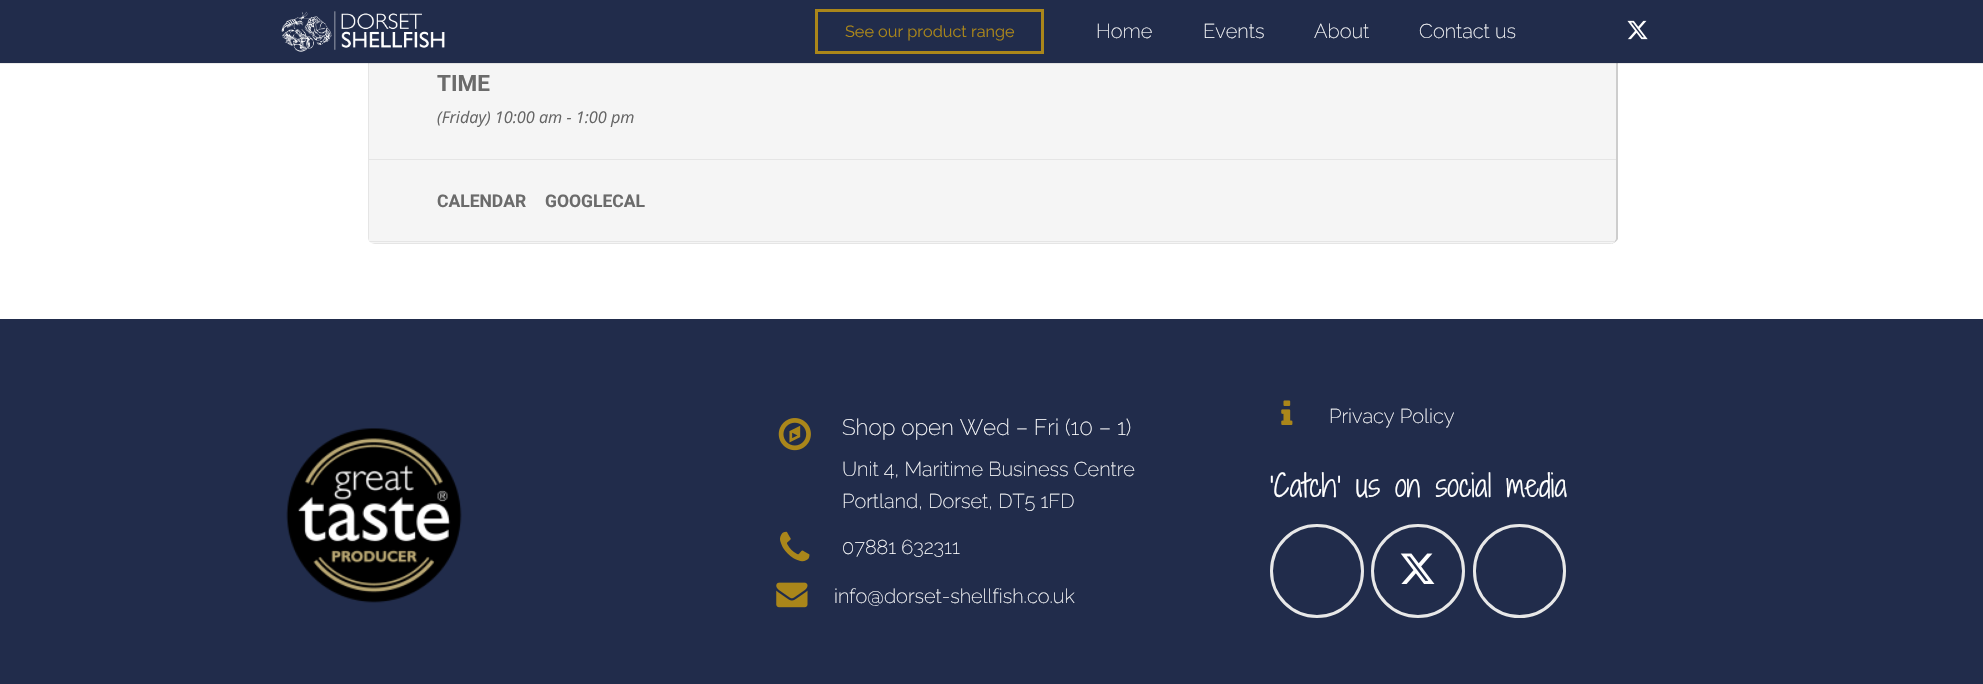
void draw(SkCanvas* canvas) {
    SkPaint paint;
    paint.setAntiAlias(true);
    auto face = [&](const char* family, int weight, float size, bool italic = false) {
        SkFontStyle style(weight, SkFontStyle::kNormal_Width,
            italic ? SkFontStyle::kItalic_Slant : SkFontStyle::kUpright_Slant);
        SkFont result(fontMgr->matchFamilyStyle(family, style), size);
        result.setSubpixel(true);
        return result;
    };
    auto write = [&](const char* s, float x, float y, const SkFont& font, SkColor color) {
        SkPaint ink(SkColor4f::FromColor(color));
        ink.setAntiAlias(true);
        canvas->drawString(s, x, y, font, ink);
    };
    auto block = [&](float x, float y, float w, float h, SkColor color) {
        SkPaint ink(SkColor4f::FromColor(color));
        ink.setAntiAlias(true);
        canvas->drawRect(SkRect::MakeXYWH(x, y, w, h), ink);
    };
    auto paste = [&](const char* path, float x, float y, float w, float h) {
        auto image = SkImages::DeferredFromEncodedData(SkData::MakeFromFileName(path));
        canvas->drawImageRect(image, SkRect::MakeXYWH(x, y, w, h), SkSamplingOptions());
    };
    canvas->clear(SK_ColorWHITE);
    paint.setColor(SkColorSetRGB(205, 205, 205));
    canvas->drawPath(SkPathBuilder().moveTo(1616, -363).lineTo(1614, -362).cubicTo(1615, -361, 1616, -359, 1616, -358).lineTo(1616, 236).cubicTo(1616, 239, 1614, 243, 1611, 244).lineTo(1612, 244).cubicTo(1614, 243, 1617, 241, 1618, 239).lineTo(1618, -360).close().detach(), paint);
    paint.setColor(SkColorSetRGB(245, 245, 245));
    canvas->drawPath(SkPathBuilder().moveTo(368, -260).lineTo(1616, -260).lineTo(1616, 238).cubicTo(1615, 241, 1613, 244, 1610, 244).lineTo(375, 244).cubicTo(372, 244, 369, 242, 368, 239).lineTo(368, 238).close().detach(), paint);
    paint.setColor(SkColorSetRGB(229, 229, 229));
    canvas->drawPath(SkPathBuilder().moveTo(368, -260).lineTo(369, -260).lineTo(369, 241).lineTo(368, 238).close().detach(), paint);
    paint.setColor(SkColorSetARGB(20, 0, 0, 0));
    canvas->drawPath(SkPathBuilder().moveTo(0, 62).lineTo(0, 64).lineTo(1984, 64).lineTo(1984, 1).lineTo(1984, 62).close().detach(), paint);
    block(0, 0, 1983, 63, SkColorSetRGB(33, 44, 75));
    paste("pic1.png", 281, 11, 164, 41);
    paint.setStyle(SkPaint::kStroke_Style);
    paint.setStrokeWidth(3);
    paint.setColor(SkColorSetRGB(170, 134, 26));
    canvas->drawRect(SkRect::MakeXYWH(816.5f, 10.5f, 226, 42), paint);
    auto kFont1 = face("Raleway", 400, 16.25f);
    write("See our product range", 845, 37, kFont1, SkColorSetRGB(170, 134, 26));
    auto kFont2 = face("Raleway", 200, 20);
    write("Home", 1096, 38, kFont2, SK_ColorWHITE);
    write("Events", 1203, 38, kFont2, SK_ColorWHITE);
    write("About", 1314, 38, kFont2, SK_ColorWHITE);
    write("Contact us", 1419, 38, kFont2, SK_ColorWHITE);
    paste("pic2.png", 1627, 20, 21, 20);
    paint.setStyle(SkPaint::kFill_Style);
    paint.setColor(SkColorSetRGB(229, 229, 229));
    canvas->drawPath(SkPathBuilder().moveTo(1613, 243).lineTo(1610, 244).lineTo(375, 244).lineTo(372, 243).close().detach(), paint);
    block(369, 159, 1247, 1, SkColorSetRGB(229, 229, 229));
    auto kFont3 = face("Roboto", 700, 22.5f);
    write("TIME", 437, 91, kFont3, SkColorSetRGB(107, 107, 107));
    auto kFont4 = face("Open Sans", 400, 16.25f, true);
    write("(Friday) 10:00 am - 1:00 pm", 437, 123, kFont4, SkColorSetRGB(101, 101, 101));
    paint.setColor(SkColorSetRGB(245, 245, 245));
    canvas->drawPath(SkPathBuilder().moveTo(369, 160).lineTo(1616, 160).lineTo(1616, 238).cubicTo(1616, 240, 1614, 242, 1613, 243).lineTo(372, 243).lineTo(369, 241).close().detach(), paint);
    paint.setColor(SkColorSetRGB(229, 229, 229));
    canvas->drawPath(SkPathBuilder().moveTo(370, 242).lineTo(369, 241).lineTo(1615, 241).lineTo(1614, 242).close().detach(), paint);
    auto kFont5 = face("Roboto", 700, 17.5f);
    write("CALENDAR", 437, 207, kFont5, SkColorSetRGB(107, 107, 107));
    write("GOOGLECAL", 545, 207, kFont5, SkColorSetRGB(107, 107, 107));
    block(0, 319, 1983, 365, SkColorSetRGB(33, 44, 75));
    paste("pic3.png", 286, 428, 176, 175);
    paste("pic4.png", 778, 418, 33, 33);
    auto kFont6 = face("Raleway", 200, 22.5f);
    write("Shop open Wed – Fri (10 – 1)", 842, 435, kFont6, SK_ColorWHITE);
    write("Unit 4, Maritime Business Centre", 842, 476, kFont2, SK_ColorWHITE);
    write("Portland, Dorset, DT5 1FD", 842, 508, kFont2, SK_ColorWHITE);
    paste("pic5.png", 780, 531, 30, 31);
    write("07881 632311", 842, 554, kFont2, SK_ColorWHITE);
    paste("pic6.png", 776, 582, 32, 26);
    write("info@dorset-shellfish.co.uk", 834, 603, kFont2, SK_ColorWHITE);
    paste("pic7.png", 1281, 400, 12, 25);
    write("Privacy Policy", 1329, 423, kFont2, SK_ColorWHITE);
    auto kFont7 = face("Shadows Into Light Two", 300, 30);
    write("'Catch' us on social media", 1269, 497, kFont7, SK_ColorWHITE);
    paint.setStyle(SkPaint::kStroke_Style);
    paint.setColor(SkColorSetRGB(232, 232, 232));
    canvas->drawCircle(1317, 571, 45.5f, paint);
    canvas->drawCircle(1418, 571, 45.5f, paint);
    paste("pic8.png", 1400, 553, 35, 31);
    canvas->drawRoundRect(SkRect::MakeXYWH(1474.5f, 525.5f, 90, 91), 45, 45, paint);
}
